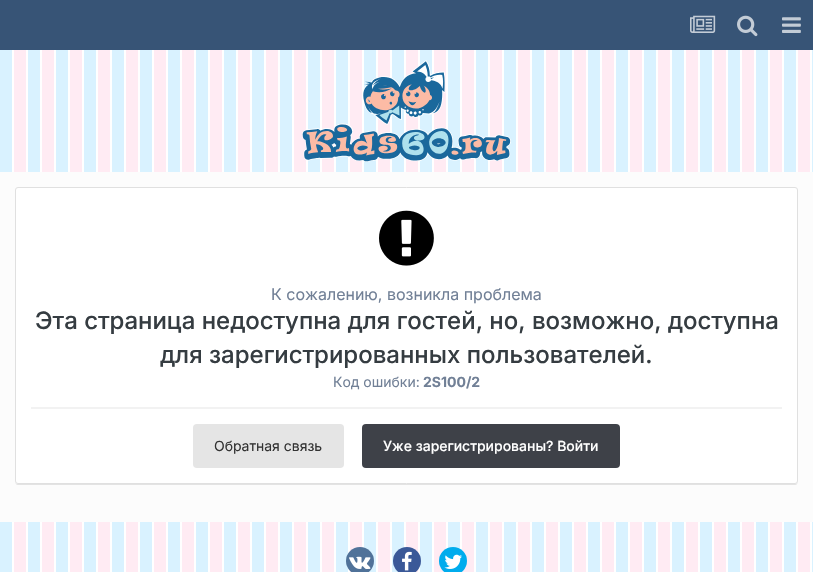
void draw(SkCanvas* canvas) {
    SkPaint paint;
    paint.setAntiAlias(true);
    auto face = [&](const char* family, int weight, float size, bool italic = false) {
        SkFontStyle style(weight, SkFontStyle::kNormal_Width,
            italic ? SkFontStyle::kItalic_Slant : SkFontStyle::kUpright_Slant);
        SkFont result(fontMgr->matchFamilyStyle(family, style), size);
        result.setSubpixel(true);
        return result;
    };
    auto write = [&](const char* s, float x, float y, const SkFont& font, SkColor color) {
        SkPaint ink(SkColor4f::FromColor(color));
        ink.setAntiAlias(true);
        canvas->drawString(s, x, y, font, ink);
    };
    auto block = [&](float x, float y, float w, float h, SkColor color) {
        SkPaint ink(SkColor4f::FromColor(color));
        ink.setAntiAlias(true);
        canvas->drawRect(SkRect::MakeXYWH(x, y, w, h), ink);
    };
    auto card = [&](float x, float y, float w, float h, float radius, SkColor color) {
        SkPaint ink(SkColor4f::FromColor(color));
        ink.setAntiAlias(true);
        canvas->drawRoundRect(SkRect::MakeXYWH(x, y, w, h), radius, radius, ink);
    };
    auto paste = [&](const char* path, float x, float y, float w, float h) {
        auto image = SkImages::DeferredFromEncodedData(SkData::MakeFromFileName(path));
        canvas->drawImageRect(image, SkRect::MakeXYWH(x, y, w, h), SkSamplingOptions());
    };
    canvas->clear(SK_ColorWHITE);
    paste("pic1.png", 0, 50, 813, 522);
    block(0, 0, 813, 50, SkColorSetRGB(55, 84, 118));
    paste("pic2.png", 690, 15, 26, 18);
    paste("pic3.png", 737, 15, 21, 22);
    paste("pic4.png", 782, 17, 19, 16);
    paste("pic5.png", 302, 60, 209, 102);
    block(0, 172, 813, 350, SkColorSetRGB(252, 252, 252));
    paint.setColor(SkColorSetRGB(227, 227, 227));
    canvas->drawPath(SkPathBuilder().moveTo(15, 481).cubicTo(15, 483, 16, 485, 18, 485).lineTo(795, 485).cubicTo(797, 485, 798, 483, 798, 481).cubicTo(798, 483, 797, 484, 795, 484).lineTo(18, 484).cubicTo(16, 484, 15, 483, 15, 481).close().detach(), paint);
    paint.setColor(SK_ColorWHITE);
    canvas->drawRoundRect(SkRect::MakeXYWH(15.5f, 187.5f, 782, 296), 2.5f, 2.5f, paint);
    paint.setStyle(SkPaint::kStroke_Style);
    paint.setStrokeWidth(1);
    paint.setColor(SkColorSetRGB(224, 224, 224));
    canvas->drawRoundRect(SkRect::MakeXYWH(15.5f, 187.5f, 782, 296), 2.5f, 2.5f, paint);
    paste("pic6.png", 379, 210, 55, 56);
    auto kFont1 = face("Inter", 400, 16);
    write("К сожалению, возникла проблема", 271, 300, kFont1, SkColorSetRGB(113, 128, 150));
    auto kFont2 = face("Inter", 500, 24);
    write("Эта страница недоступна для гостей, но, возможно, доступна", 35, 329, kFont2, SkColorSetRGB(53, 60, 65));
    write("для зарегистрированных пользователей.", 160, 363, kFont2, SkColorSetRGB(53, 60, 65));
    auto kFont3 = face("Inter", 400, 14);
    write("Код ошибки:", 333, 387, kFont3, SkColorSetRGB(113, 128, 150));
    auto kFont4 = face("Inter", 700, 14);
    write("2S100/2", 423, 387, kFont4, SkColorSetRGB(113, 128, 150));
    block(31, 407, 751, 2, SkColorSetRGB(242, 242, 242));
    card(193, 424, 151, 44, 4, SkColorSetRGB(229, 229, 229));
    write("Обратная связь", 214, 451, kFont3, SkColorSetRGB(51, 51, 51));
    card(362, 424, 258, 44, 4, SkColorSetRGB(62, 65, 72));
    auto kFont5 = face("Inter", 500, 14);
    write("Уже зарегистрированы? Войти", 383, 451, kFont5, SK_ColorWHITE);
    paint.setStyle(SkPaint::kFill_Style);
    paint.setColor(SkColorSetRGB(80, 114, 153));
    canvas->drawCircle(360, 561, 14, paint);
    paste("pic7.png", 349, 556, 22, 13);
    paint.setColor(SkColorSetRGB(59, 89, 152));
    canvas->drawCircle(407, 561, 14, paint);
    paste("pic8.png", 402, 551, 10, 20);
    paint.setColor(SkColorSetRGB(0, 172, 237));
    canvas->drawCircle(453, 561, 14, paint);
    paste("pic9.png", 444, 554, 18, 15);
}
